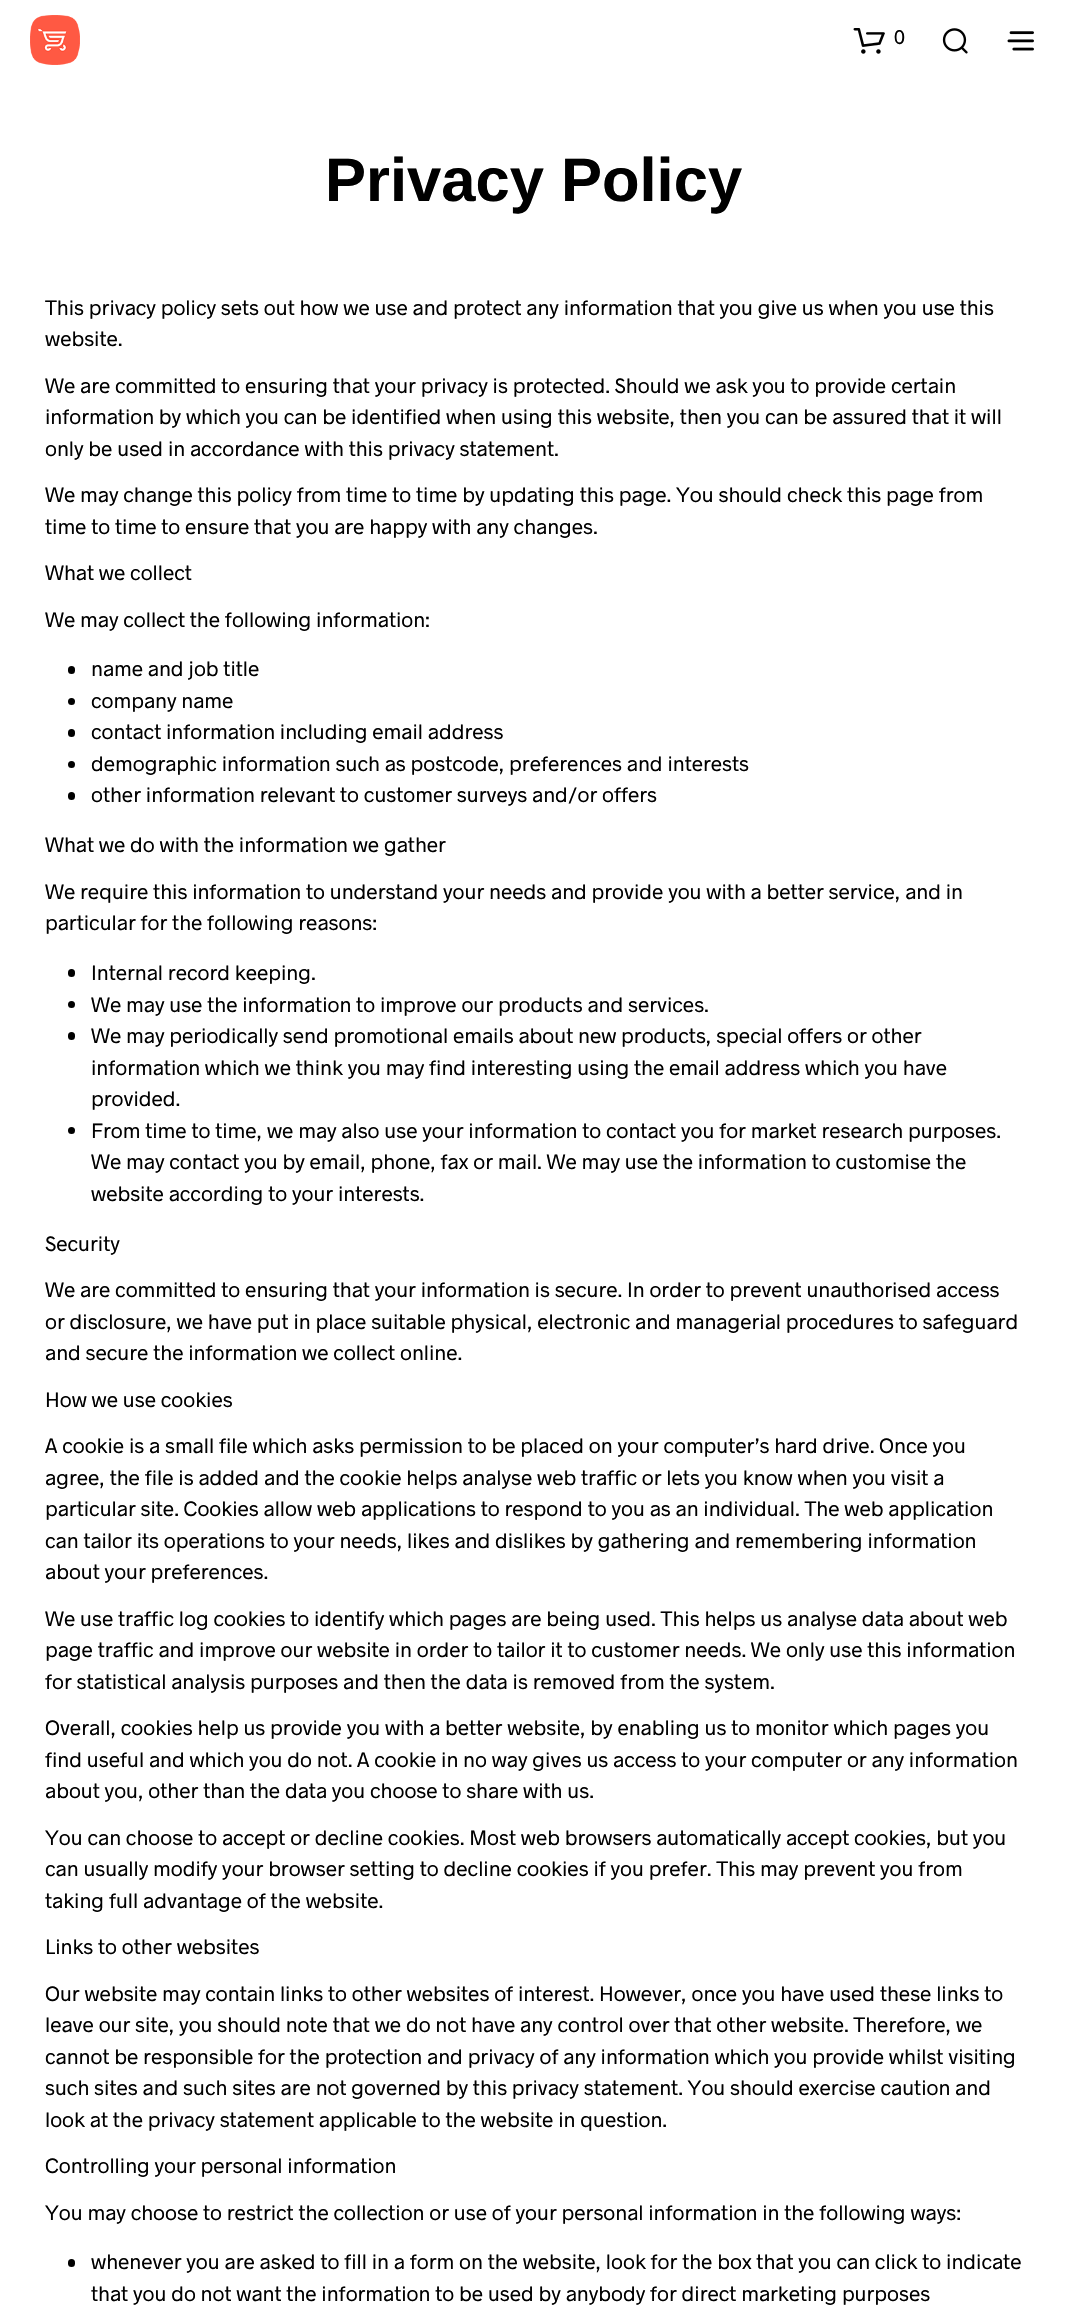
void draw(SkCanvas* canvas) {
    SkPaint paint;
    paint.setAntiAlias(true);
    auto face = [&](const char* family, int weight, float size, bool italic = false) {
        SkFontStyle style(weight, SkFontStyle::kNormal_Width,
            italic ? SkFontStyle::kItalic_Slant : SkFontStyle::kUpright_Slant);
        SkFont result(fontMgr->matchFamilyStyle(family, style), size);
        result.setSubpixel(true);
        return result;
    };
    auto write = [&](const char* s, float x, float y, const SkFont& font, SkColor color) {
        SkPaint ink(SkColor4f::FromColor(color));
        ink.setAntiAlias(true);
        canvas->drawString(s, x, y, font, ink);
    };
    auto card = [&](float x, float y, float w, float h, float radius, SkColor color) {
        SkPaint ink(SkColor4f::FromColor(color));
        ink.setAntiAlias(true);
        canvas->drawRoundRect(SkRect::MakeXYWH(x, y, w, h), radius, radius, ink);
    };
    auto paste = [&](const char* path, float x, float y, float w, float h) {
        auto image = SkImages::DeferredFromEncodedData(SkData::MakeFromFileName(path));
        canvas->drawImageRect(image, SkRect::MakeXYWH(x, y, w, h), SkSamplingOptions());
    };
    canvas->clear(SK_ColorWHITE);
    paste("pic1.png", 30, 15, 50, 50);
    paste("pic2.png", 853, 28, 32, 26);
    auto kFont1 = face("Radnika", 400, 20);
    write("0", 894, 44, kFont1, SK_ColorBLACK);
    paste("pic3.png", 942, 28, 26, 26);
    paste("pic4.png", 1007, 31, 27, 20);
    auto kFont2 = face("Liberation Sans", 700, 61.5f);
    write("Privacy Policy", 325, 201, kFont2, SK_ColorBLACK);
    auto kFont3 = face("Radnika", 400, 21);
    write("This privacy policy sets out how we use and protect any information that you give us when you use this", 45, 315, kFont3, SK_ColorBLACK);
    write("website.", 45, 346, kFont3, SK_ColorBLACK);
    write("We are committed to ensuring that your privacy is protected. Should we ask you to provide certain", 45, 393, kFont3, SK_ColorBLACK);
    write("information by which you can be identified when using this website, then you can be assured that it will", 45, 424, kFont3, SK_ColorBLACK);
    write("only be used in accordance with this privacy statement.", 45, 456, kFont3, SK_ColorBLACK);
    write("We may change this policy from time to time by updating this page. You should check this page from", 45, 502, kFont3, SK_ColorBLACK);
    write("time to time to ensure that you are happy with any changes.", 45, 534, kFont3, SK_ColorBLACK);
    write("What we collect", 45, 580, kFont3, SK_ColorBLACK);
    write("We may collect the following information:", 45, 627, kFont3, SK_ColorBLACK);
    card(68, 666, 7, 8, 3.5f, SK_ColorBLACK);
    write("name and job title", 91, 676, kFont3, SK_ColorBLACK);
    paint.setColor(SK_ColorBLACK);
    canvas->drawCircle(71.5f, 701.5f, 3.5f, paint);
    write("company name", 91, 708, kFont3, SK_ColorBLACK);
    card(68, 729, 7, 8, 3.5f, SK_ColorBLACK);
    write("contact information including email address", 91, 739, kFont3, SK_ColorBLACK);
    canvas->drawCircle(71.5f, 764.5f, 3.5f, paint);
    write("demographic information such as postcode, preferences and interests", 91, 771, kFont3, SK_ColorBLACK);
    card(68, 792, 7, 8, 3.5f, SK_ColorBLACK);
    write("other information relevant to customer surveys and/or offers", 91, 802, kFont3, SK_ColorBLACK);
    write("What we do with the information we gather", 45, 852, kFont3, SK_ColorBLACK);
    write("We require this information to understand your needs and provide you with a better service, and in", 45, 899, kFont3, SK_ColorBLACK);
    write("particular for the following reasons:", 45, 930, kFont3, SK_ColorBLACK);
    card(68, 969, 7, 8, 3.5f, SK_ColorBLACK);
    write("Internal record keeping.", 91, 980, kFont3, SK_ColorBLACK);
    canvas->drawCircle(71.5f, 1004.5f, 3.5f, paint);
    write("We may use the information to improve our products and services.", 91, 1012, kFont3, SK_ColorBLACK);
    card(68, 1032, 7, 8, 3.5f, SK_ColorBLACK);
    write("We may periodically send promotional emails about new products, special offers or other", 91, 1043, kFont3, SK_ColorBLACK);
    write("information which we think you may find interesting using the email address which you have", 91, 1075, kFont3, SK_ColorBLACK);
    write("provided.", 91, 1106, kFont3, SK_ColorBLACK);
    canvas->drawCircle(71.5f, 1130.5f, 3.5f, paint);
    write("From time to time, we may also use your information to contact you for market research purposes.", 91, 1138, kFont3, SK_ColorBLACK);
    write("We may contact you by email, phone, fax or mail. We may use the information to customise the", 91, 1169, kFont3, SK_ColorBLACK);
    write("website according to your interests.", 91, 1201, kFont3, SK_ColorBLACK);
    write("Security", 45, 1251, kFont3, SK_ColorBLACK);
    write("We are committed to ensuring that your information is secure. In order to prevent unauthorised access", 45, 1297, kFont3, SK_ColorBLACK);
    write("or disclosure, we have put in place suitable physical, electronic and managerial procedures to safeguard", 45, 1329, kFont3, SK_ColorBLACK);
    write("and secure the information we collect online.", 45, 1360, kFont3, SK_ColorBLACK);
    write("How we use cookies", 45, 1407, kFont3, SK_ColorBLACK);
    write("A cookie is a small file which asks permission to be placed on your computer’s hard drive. Once you", 45, 1453, kFont3, SK_ColorBLACK);
    write("agree, the file is added and the cookie helps analyse web traffic or lets you know when you visit a", 45, 1485, kFont3, SK_ColorBLACK);
    write("particular site. Cookies allow web applications to respond to you as an individual. The web application", 45, 1516, kFont3, SK_ColorBLACK);
    write("can tailor its operations to your needs, likes and dislikes by gathering and remembering information", 45, 1548, kFont3, SK_ColorBLACK);
    write("about your preferences.", 45, 1579, kFont3, SK_ColorBLACK);
    write("We use traffic log cookies to identify which pages are being used. This helps us analyse data about web", 45, 1626, kFont3, SK_ColorBLACK);
    write("page traffic and improve our website in order to tailor it to customer needs. We only use this information", 45, 1657, kFont3, SK_ColorBLACK);
    write("for statistical analysis purposes and then the data is removed from the system.", 45, 1689, kFont3, SK_ColorBLACK);
    write("Overall, cookies help us provide you with a better website, by enabling us to monitor which pages you", 45, 1735, kFont3, SK_ColorBLACK);
    write("find useful and which you do not. A cookie in no way gives us access to your computer or any information", 45, 1767, kFont3, SK_ColorBLACK);
    write("about you, other than the data you choose to share with us.", 45, 1798, kFont3, SK_ColorBLACK);
    write("You can choose to accept or decline cookies. Most web browsers automatically accept cookies, but you", 45, 1845, kFont3, SK_ColorBLACK);
    write("can usually modify your browser setting to decline cookies if you prefer. This may prevent you from", 45, 1876, kFont3, SK_ColorBLACK);
    write("taking full advantage of the website.", 45, 1908, kFont3, SK_ColorBLACK);
    write("Links to other websites", 45, 1954, kFont3, SK_ColorBLACK);
    write("Our website may contain links to other websites of interest. However, once you have used these links to", 45, 2001, kFont3, SK_ColorBLACK);
    write("leave our site, you should note that we do not have any control over that other website. Therefore, we", 45, 2032, kFont3, SK_ColorBLACK);
    write("cannot be responsible for the protection and privacy of any information which you provide whilst visiting", 45, 2064, kFont3, SK_ColorBLACK);
    write("such sites and such sites are not governed by this privacy statement. You should exercise caution and", 45, 2095, kFont3, SK_ColorBLACK);
    write("look at the privacy statement applicable to the website in question.", 45, 2127, kFont3, SK_ColorBLACK);
    write("Controlling your personal information", 45, 2173, kFont3, SK_ColorBLACK);
    write("You may choose to restrict the collection or use of your personal information in the following ways:", 45, 2220, kFont3, SK_ColorBLACK);
    card(68, 2259, 7, 8, 3.5f, SK_ColorBLACK);
    write("whenever you are asked to fill in a form on the website, look for the box that you can click to indicate", 91, 2269, kFont3, SK_ColorBLACK);
    write("that you do not want the information to be used by anybody for direct marketing purposes", 91, 2301, kFont3, SK_ColorBLACK);
}
